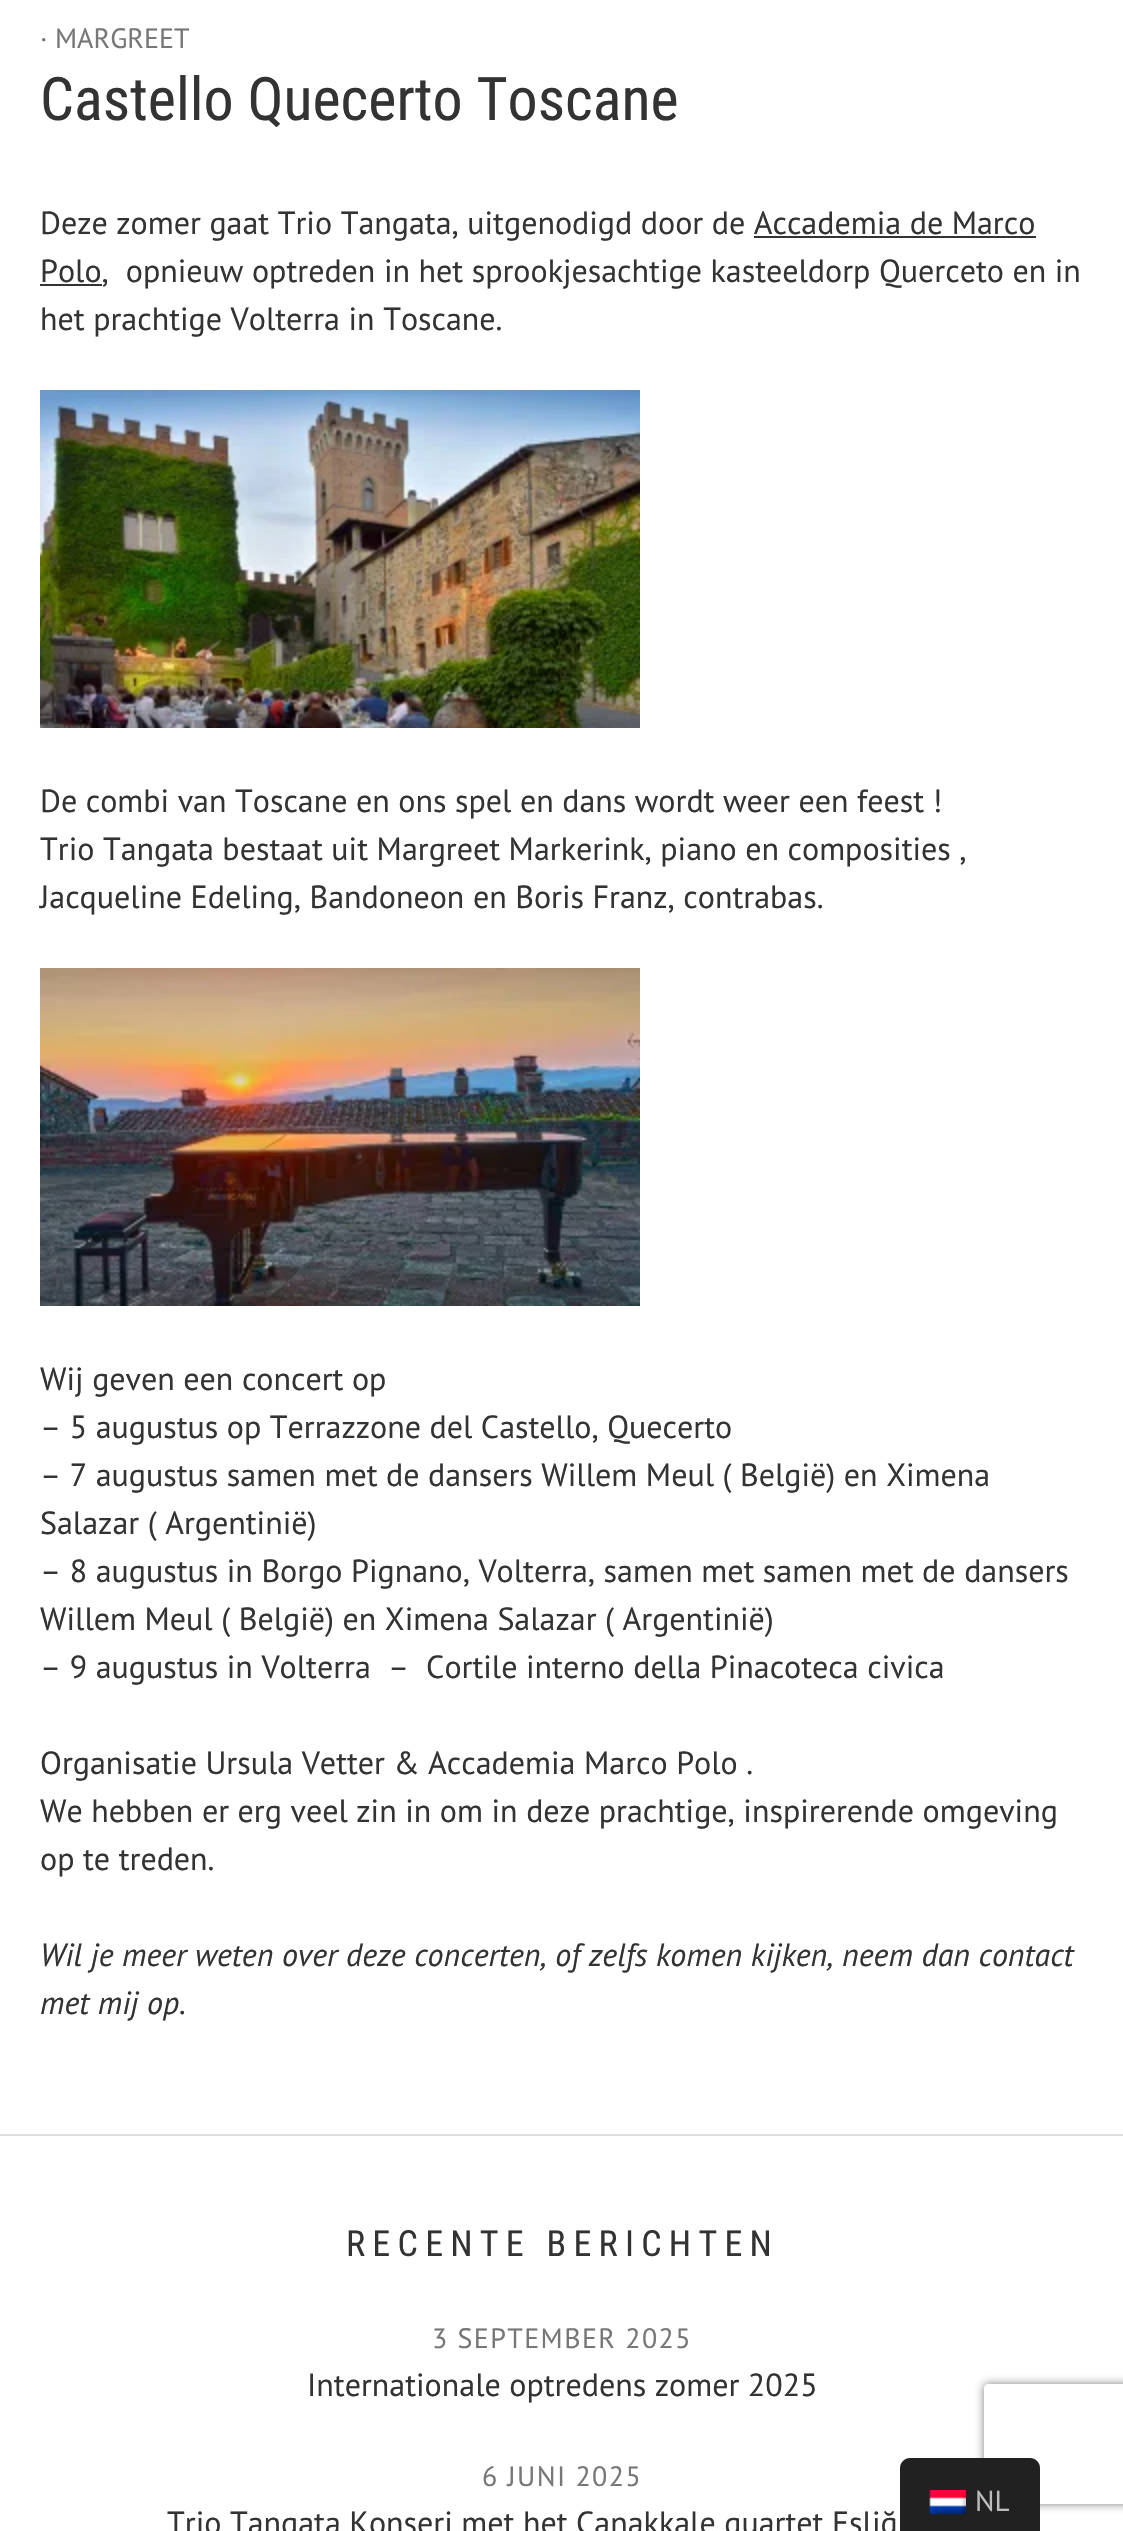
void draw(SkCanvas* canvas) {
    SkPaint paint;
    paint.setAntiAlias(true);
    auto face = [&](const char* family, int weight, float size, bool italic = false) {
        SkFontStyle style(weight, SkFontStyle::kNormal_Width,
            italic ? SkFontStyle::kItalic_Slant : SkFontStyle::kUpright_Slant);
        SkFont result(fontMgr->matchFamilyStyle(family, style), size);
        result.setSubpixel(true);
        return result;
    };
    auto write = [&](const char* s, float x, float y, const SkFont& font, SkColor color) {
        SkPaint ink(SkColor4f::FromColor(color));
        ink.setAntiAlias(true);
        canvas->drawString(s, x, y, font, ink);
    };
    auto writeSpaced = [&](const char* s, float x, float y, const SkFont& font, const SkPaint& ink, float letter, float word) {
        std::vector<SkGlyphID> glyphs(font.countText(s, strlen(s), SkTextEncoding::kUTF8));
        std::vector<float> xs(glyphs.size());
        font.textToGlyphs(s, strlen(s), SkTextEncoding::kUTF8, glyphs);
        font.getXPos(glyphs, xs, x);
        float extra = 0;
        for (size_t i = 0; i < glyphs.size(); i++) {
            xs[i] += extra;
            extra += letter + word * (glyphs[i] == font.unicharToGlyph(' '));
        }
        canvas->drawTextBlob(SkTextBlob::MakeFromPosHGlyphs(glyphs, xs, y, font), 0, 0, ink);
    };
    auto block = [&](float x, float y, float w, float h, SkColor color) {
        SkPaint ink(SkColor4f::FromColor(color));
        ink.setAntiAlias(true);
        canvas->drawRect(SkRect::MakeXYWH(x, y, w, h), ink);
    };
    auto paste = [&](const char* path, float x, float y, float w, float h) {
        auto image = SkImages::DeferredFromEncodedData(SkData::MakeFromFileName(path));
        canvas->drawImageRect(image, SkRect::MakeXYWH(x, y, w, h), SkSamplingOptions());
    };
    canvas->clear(SK_ColorWHITE);
    block(0, 2134, 1123, 2, SkColorSetRGB(221, 221, 221));
    auto kFont1 = face("PT Sans", 400, 28);
    write("· MARGREET", 40, 48, kFont1, SkColorSetRGB(119, 119, 119));
    auto kFont2 = face("Roboto Condensed", 400, 60);
    write("Castello Quecerto Toscane", 40, 120, kFont2, SkColorSetRGB(51, 51, 51));
    auto kFont3 = face("PT Sans", 400, 32);
    write("Deze zomer gaat Trio Tangata, uitgenodigd door de Accademia de Marco", 40, 234, kFont3, SkColorSetRGB(51, 51, 51));
    block(40, 284, 62, 2, SkColorSetRGB(51, 51, 51));
    write("Polo,  opnieuw optreden in het sprookjesachtige kasteeldorp Querceto en in", 40, 282, kFont3, SkColorSetRGB(51, 51, 51));
    block(754, 236, 282, 2, SkColorSetRGB(51, 51, 51));
    write("het prachtige Volterra in Toscane.", 40, 330, kFont3, SkColorSetRGB(51, 51, 51));
    paste("pic1.png", 40, 390, 600, 338);
    write("De combi van Toscane en ons spel en dans wordt weer een feest !", 40, 812, kFont3, SkColorSetRGB(51, 51, 51));
    write("Trio Tangata bestaat uit Margreet Markerink, piano en composities ,", 40, 860, kFont3, SkColorSetRGB(51, 51, 51));
    write("Jacqueline Edeling, Bandoneon en Boris Franz, contrabas.", 40, 908, kFont3, SkColorSetRGB(51, 51, 51));
    paste("pic2.png", 40, 968, 600, 338);
    write("Wij geven een concert op", 40, 1390, kFont3, SkColorSetRGB(51, 51, 51));
    write("– 5 augustus op Terrazzone del Castello, Quecerto", 40, 1438, kFont3, SkColorSetRGB(51, 51, 51));
    write("– 7 augustus samen met de dansers Willem Meul ( België) en Ximena", 40, 1486, kFont3, SkColorSetRGB(51, 51, 51));
    write("Salazar ( Argentinië)", 40, 1534, kFont3, SkColorSetRGB(51, 51, 51));
    write("– 8 augustus in Borgo Pignano, Volterra, samen met samen met de dansers", 40, 1582, kFont3, SkColorSetRGB(51, 51, 51));
    write("Willem Meul ( België) en Ximena Salazar ( Argentinië)", 40, 1630, kFont3, SkColorSetRGB(51, 51, 51));
    write("– 9 augustus in Volterra  –  Cortile interno della Pinacoteca civica", 40, 1678, kFont3, SkColorSetRGB(51, 51, 51));
    write("Organisatie Ursula Vetter & Accademia Marco Polo .", 40, 1774, kFont3, SkColorSetRGB(51, 51, 51));
    write("We hebben er erg veel zin in om in deze prachtige, inspirerende omgeving", 40, 1822, kFont3, SkColorSetRGB(51, 51, 51));
    write("op te treden.", 40, 1870, kFont3, SkColorSetRGB(51, 51, 51));
    auto kFont4 = face("PT Sans", 400, 32, true);
    write("Wil je meer weten over deze concerten, of zelfs komen kijken, neem dan contact", 40, 1966, kFont4, SkColorSetRGB(51, 51, 51));
    write("met mij op.", 40, 2014, kFont4, SkColorSetRGB(51, 51, 51));
    auto kFont5 = face("Roboto Condensed", 400, 36);
    paint.setColor(SkColorSetRGB(51, 51, 51));
    writeSpaced("RECENTE BERICHTEN", 346, 2256, kFont5, paint, 7.25f, 0);
    paint.setColor(SkColorSetRGB(119, 119, 119));
    writeSpaced("3 SEPTEMBER 2025", 432, 2348, kFont1, paint, 1.4f, 0);
    write("Internationale optredens zomer 2025", 307, 2396, kFont3, SkColorSetRGB(51, 51, 51));
    writeSpaced("6 JUNI 2025", 482, 2486, kFont1, paint, 1.4f, 0);
    write("Trio Tangata Konseri met het Çanakkale quartet Eşliğ", 167, 2534, kFont3, SkColorSetRGB(51, 51, 51));
    canvas->save();
    canvas->clipPath(SkPathBuilder(SkPathFillType::kEvenOdd).moveTo(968, 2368).lineTo(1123, 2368).lineTo(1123, 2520).lineTo(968, 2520).close().moveTo(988, 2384).lineTo(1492, 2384).cubicTo(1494, 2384, 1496, 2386, 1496, 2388).lineTo(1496, 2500).cubicTo(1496, 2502, 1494, 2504, 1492, 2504).lineTo(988, 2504).cubicTo(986, 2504, 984, 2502, 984, 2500).lineTo(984, 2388).cubicTo(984, 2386, 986, 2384, 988, 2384).close().detach(), true);
    paint.setColor(SkColorSetRGB(128, 128, 128));
    paint.setMaskFilter(SkMaskFilter::MakeBlur(kNormal_SkBlurStyle, 5));
    canvas->drawRoundRect(SkRect::MakeXYWH(984, 2384, 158, 120), 4, 4, paint);
    paint.setMaskFilter(nullptr);
    canvas->restore();
    paint.setColor(SkColorSetRGB(33, 33, 33));
    canvas->drawPath(SkPathBuilder().moveTo(910, 2458).lineTo(1030, 2458).cubicTo(1035.5f, 2458, 1040, 2462.5f, 1040, 2468).lineTo(1040, 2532).lineTo(900, 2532).lineTo(900, 2468).cubicTo(900, 2462.5f, 904.5f, 2458, 910, 2458).close().detach(), paint);
    paste("pic3.png", 929, 2490, 37, 25);
    auto kFont6 = face("PT Sans", 400, 29);
    write("NL", 975, 2511, kFont6, SkColorSetRGB(189, 189, 189));
}
